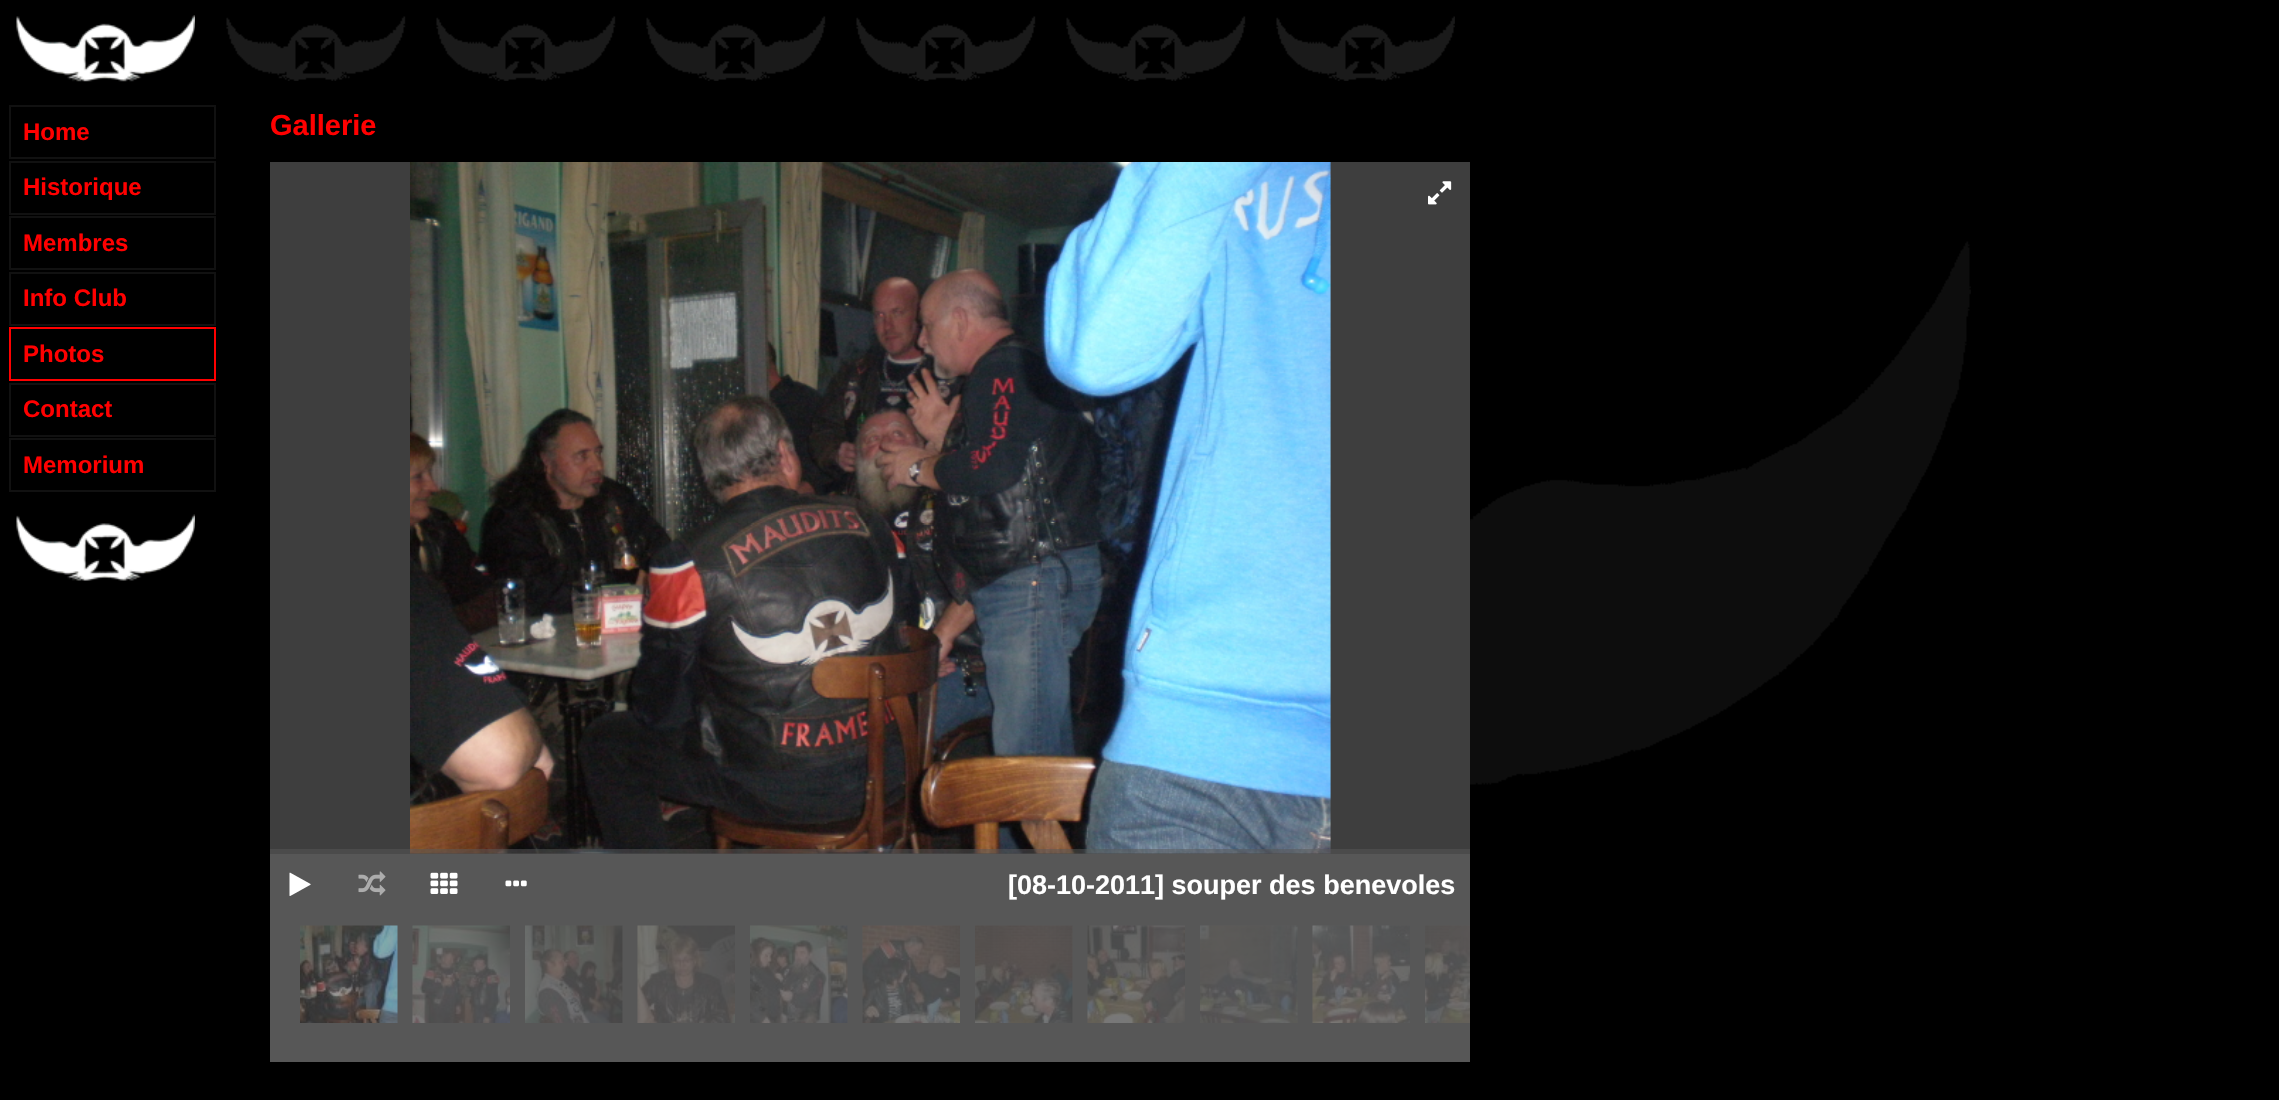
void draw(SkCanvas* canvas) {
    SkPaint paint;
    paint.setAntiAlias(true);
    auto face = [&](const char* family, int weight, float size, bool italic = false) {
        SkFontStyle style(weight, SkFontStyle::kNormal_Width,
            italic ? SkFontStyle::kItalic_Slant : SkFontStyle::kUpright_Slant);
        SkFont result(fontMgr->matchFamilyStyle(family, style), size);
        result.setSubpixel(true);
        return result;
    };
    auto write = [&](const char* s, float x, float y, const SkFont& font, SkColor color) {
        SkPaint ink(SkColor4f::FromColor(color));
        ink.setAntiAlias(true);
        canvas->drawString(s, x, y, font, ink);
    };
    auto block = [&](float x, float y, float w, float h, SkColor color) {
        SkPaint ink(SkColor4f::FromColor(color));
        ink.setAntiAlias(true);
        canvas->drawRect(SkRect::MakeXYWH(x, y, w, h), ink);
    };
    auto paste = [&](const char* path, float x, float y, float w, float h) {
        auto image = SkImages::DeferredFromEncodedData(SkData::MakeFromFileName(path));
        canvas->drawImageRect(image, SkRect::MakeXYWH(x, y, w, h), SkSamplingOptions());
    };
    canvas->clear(SK_ColorBLACK);
    paste("pic1.png", 1470, 241, 501, 613);
    paste("pic2.png", 16, 15, 179, 67);
    paint.setStyle(SkPaint::kStroke_Style);
    paint.setStrokeWidth(2);
    paint.setColor(SkColorSetRGB(17, 17, 17));
    canvas->drawRect(SkRect::MakeXYWH(10, 106, 205, 52), paint);
    auto kFont1 = face("Liberation Sans", 700, 24);
    write("Home", 23, 140, kFont1, SkColorSetRGB(255, 0, 0));
    canvas->drawRect(SkRect::MakeXYWH(10, 162, 205, 52), paint);
    write("Historique", 23, 195, kFont1, SkColorSetRGB(255, 0, 0));
    canvas->drawRect(SkRect::MakeXYWH(10, 217, 205, 52), paint);
    write("Membres", 23, 251, kFont1, SkColorSetRGB(255, 0, 0));
    canvas->drawRect(SkRect::MakeXYWH(10, 273, 205, 52), paint);
    write("Info Club", 23, 306, kFont1, SkColorSetRGB(255, 0, 0));
    paint.setColor(SkColorSetRGB(255, 0, 0));
    canvas->drawRect(SkRect::MakeXYWH(10, 328, 205, 52), paint);
    write("Photos", 23, 362, kFont1, SkColorSetRGB(255, 0, 0));
    paint.setColor(SkColorSetRGB(17, 17, 17));
    canvas->drawRect(SkRect::MakeXYWH(10, 384, 205, 52), paint);
    write("Contact", 23, 417, kFont1, SkColorSetRGB(255, 0, 0));
    canvas->drawRect(SkRect::MakeXYWH(10, 439, 205, 52), paint);
    write("Memorium", 23, 473, kFont1, SkColorSetRGB(255, 0, 0));
    paste("pic3.png", 16, 514, 179, 67);
    paste("pic4.png", 226, 16, 1229, 65);
    auto kFont2 = face("Liberation Sans", 700, 29);
    write("Gallerie", 270, 135, kFont2, SkColorSetRGB(255, 0, 0));
    block(270, 162, 1200, 692, SkColorSetRGB(62, 62, 62));
    paste("pic5.png", 410, 162, 921, 692);
    paste("pic6.png", 1428, 181, 24, 24);
    block(270, 849, 1200, 5, SkColorSetARGB(128, 87, 87, 87));
    block(270, 854, 1200, 208, SkColorSetRGB(87, 87, 87));
    paste("pic7.png", 289, 872, 22, 24);
    paste("pic8.png", 358, 871, 28, 25);
    paste("pic9.png", 430, 872, 28, 22);
    paste("pic10.png", 505, 880, 22, 7);
    auto kFont3 = face("Liberation Sans", 700, 27);
    write("[08-10-2011] souper des benevoles", 1008, 894, kFont3, SK_ColorWHITE);
    paste("pic11.png", 300, 925, 98, 98);
    paste("pic12.png", 412, 925, 98, 98);
    paste("pic13.png", 525, 925, 98, 98);
    paste("pic14.png", 637, 925, 98, 98);
    paste("pic15.png", 750, 925, 98, 98);
    paste("pic16.png", 862, 925, 98, 98);
    paste("pic17.png", 975, 925, 98, 98);
    paste("pic18.png", 1087, 925, 98, 98);
    paste("pic19.png", 1200, 925, 98, 98);
    paste("pic20.png", 1312, 925, 98, 98);
    paste("pic21.png", 1425, 925, 45, 98);
}
